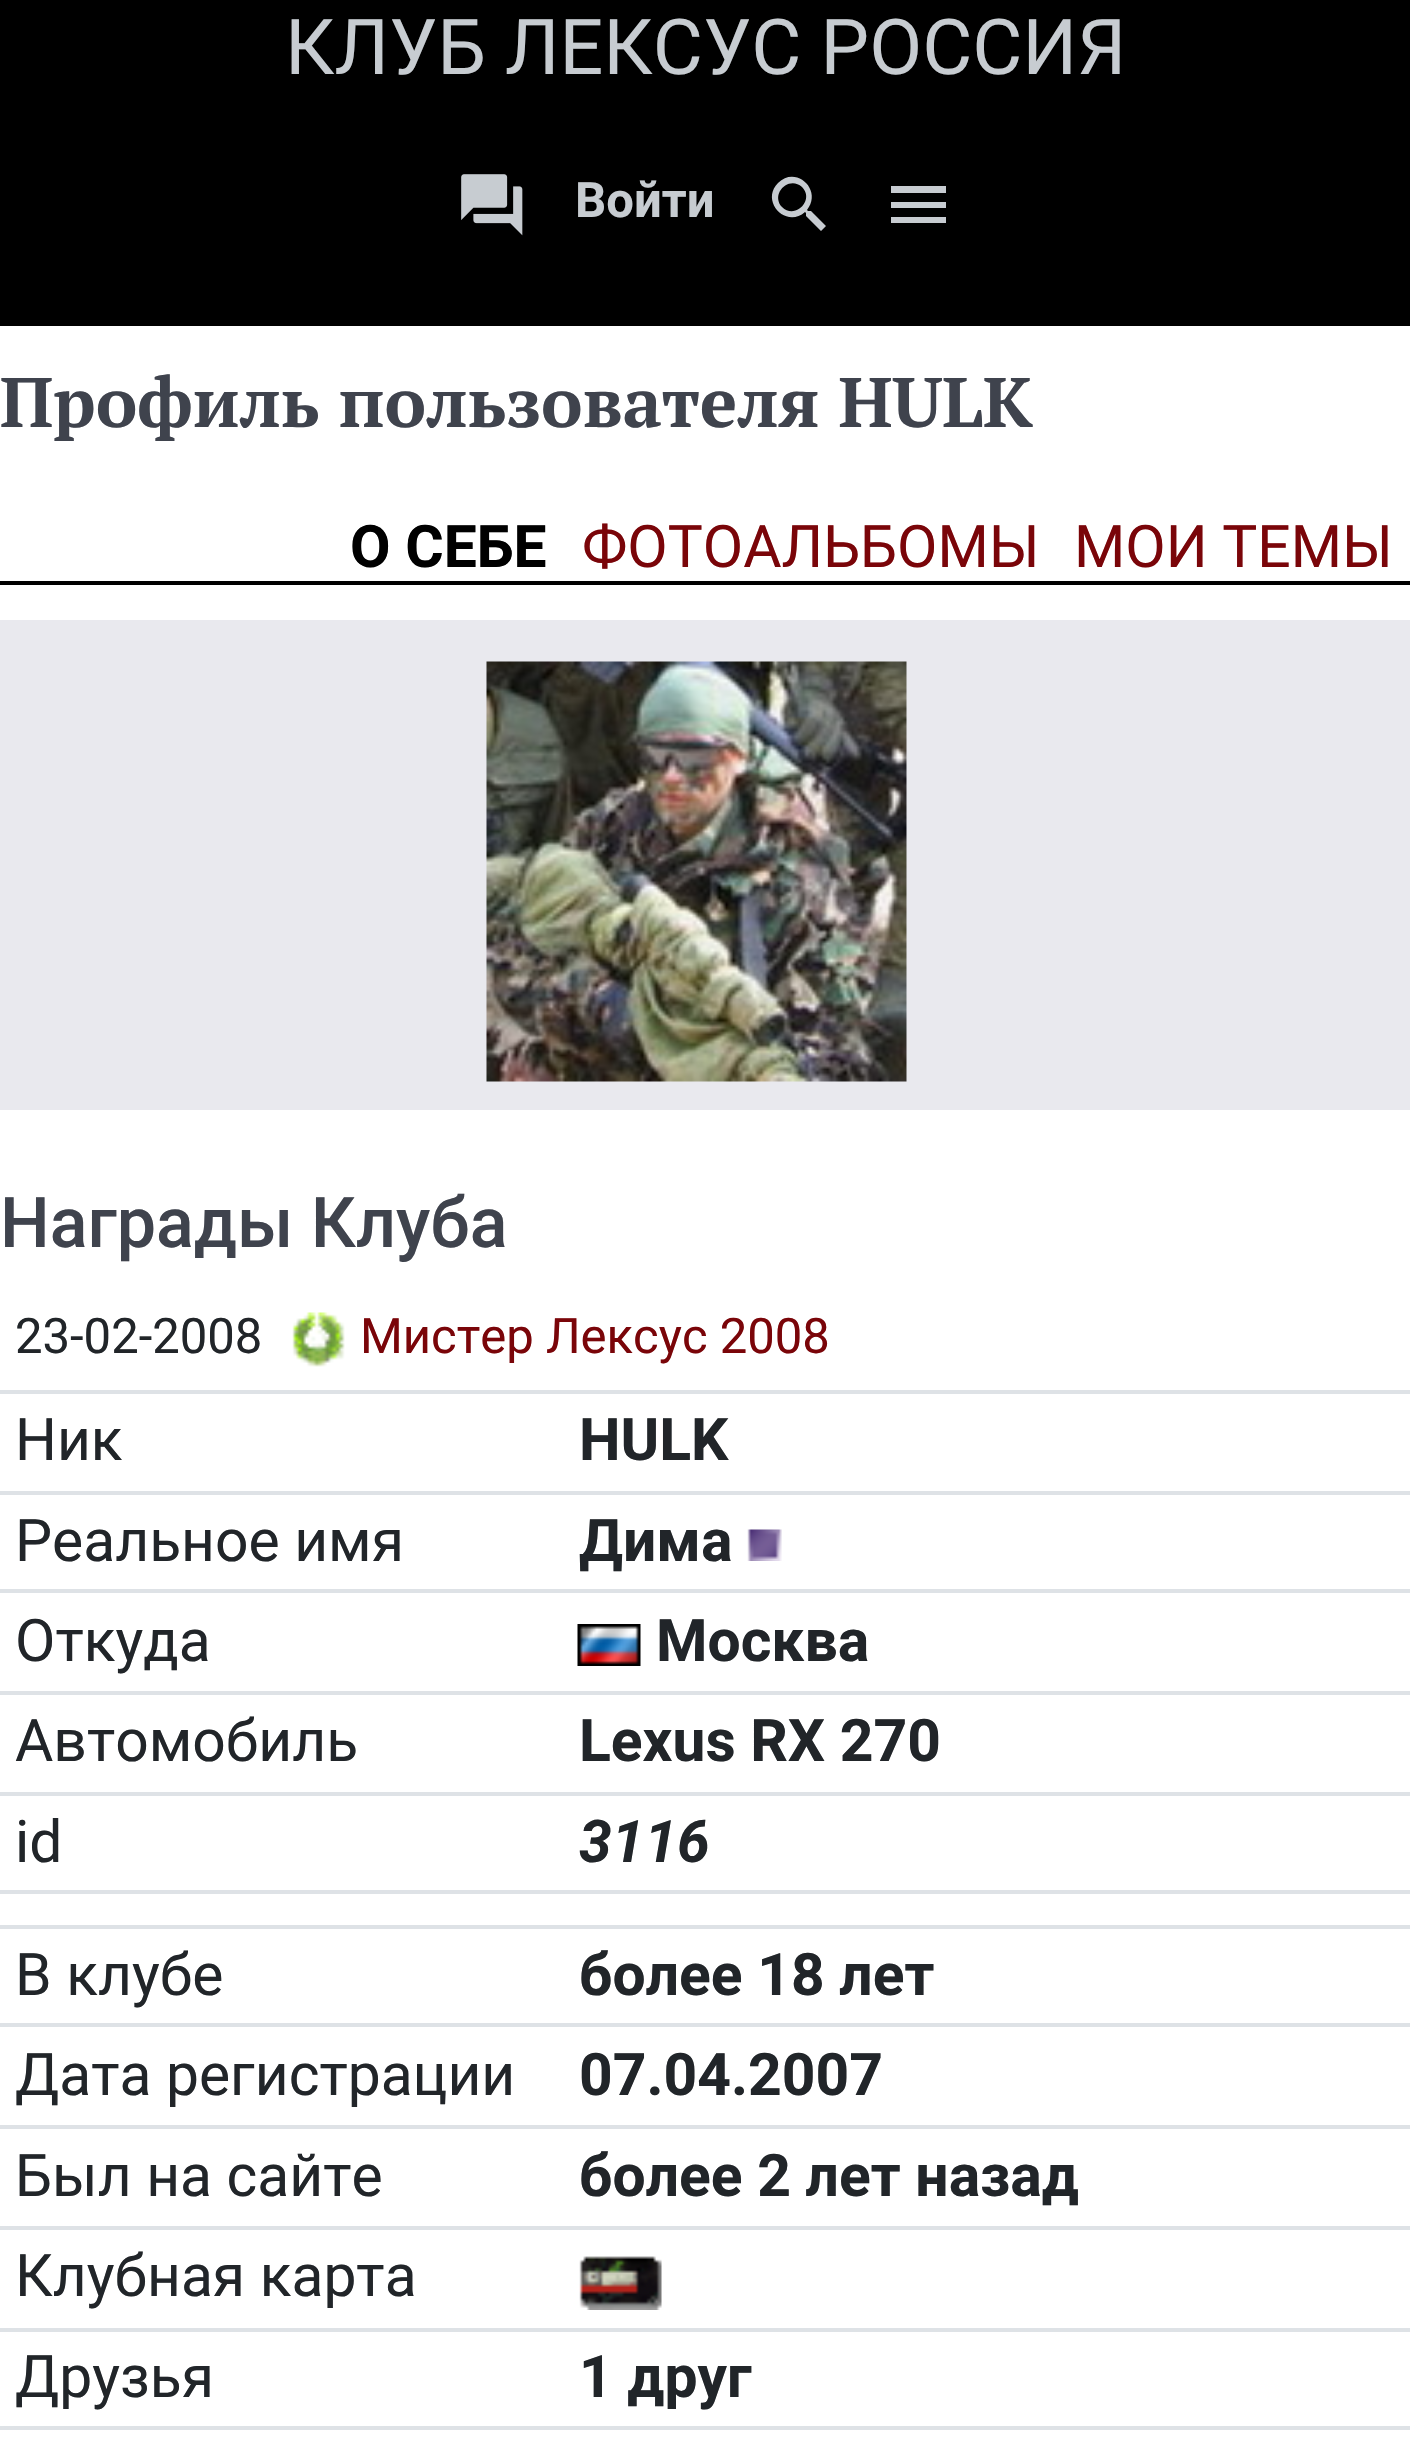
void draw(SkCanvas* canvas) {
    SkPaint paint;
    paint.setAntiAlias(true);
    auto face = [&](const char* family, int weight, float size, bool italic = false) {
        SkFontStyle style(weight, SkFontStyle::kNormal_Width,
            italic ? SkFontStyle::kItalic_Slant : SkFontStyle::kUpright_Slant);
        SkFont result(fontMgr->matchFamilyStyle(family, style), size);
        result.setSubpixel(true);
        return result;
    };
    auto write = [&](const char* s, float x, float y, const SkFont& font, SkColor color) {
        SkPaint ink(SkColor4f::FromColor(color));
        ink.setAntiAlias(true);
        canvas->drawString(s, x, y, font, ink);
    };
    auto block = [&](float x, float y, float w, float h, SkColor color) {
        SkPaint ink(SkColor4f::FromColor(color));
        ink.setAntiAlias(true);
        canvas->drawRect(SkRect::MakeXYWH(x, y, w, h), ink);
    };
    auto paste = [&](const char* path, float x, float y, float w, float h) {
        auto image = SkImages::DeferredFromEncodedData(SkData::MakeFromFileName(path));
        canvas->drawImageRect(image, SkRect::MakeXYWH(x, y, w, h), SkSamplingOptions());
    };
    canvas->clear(SK_ColorWHITE);
    block(0, 0, 1410, 326, SK_ColorBLACK);
    auto kFont1 = face("Roboto", 400, 77);
    write("КЛУБ ЛЕКСУС РОССИЯ", 285, 74, kFont1, SkColorSetRGB(199, 204, 209));
    paste("pic1.png", 461, 174, 62, 62);
    auto kFont2 = face("Roboto", 700, 49);
    write("Войти", 575, 217, kFont2, SkColorSetRGB(199, 204, 209));
    paint.setColor(SkColorSetRGB(199, 204, 209));
    canvas->drawPath(SkPathBuilder().moveTo(782, 207).cubicTo(795, 220, 815, 200, 802, 187).cubicTo(789, 175, 770, 194, 782, 207).close().moveTo(811, 211).lineTo(826, 226).lineTo(821, 231).lineTo(806, 216).lineTo(806, 213).lineTo(805, 212).cubicTo(786, 229, 760, 201, 778, 183).cubicTo(796, 165, 823, 190, 807, 210).lineTo(808, 211).close().detach(), paint);
    canvas->drawPath(SkPathBuilder().moveTo(891, 186).lineTo(946, 186).lineTo(946, 193).lineTo(891, 193).close().moveTo(891, 208).lineTo(891, 202).lineTo(946, 202).lineTo(946, 208).close().moveTo(891, 223).lineTo(891, 217).lineTo(946, 217).lineTo(946, 223).close().detach(), paint);
    auto kFont3 = face("PT Serif", 700, 70);
    write("Профиль пользователя HULK", 0, 427, kFont3, SkColorSetRGB(63, 67, 77));
    block(0, 581, 1410, 4, SK_ColorBLACK);
    auto kFont4 = face("Roboto", 700, 58.75f);
    write("О СЕБЕ", 350, 567, kFont4, SK_ColorBLACK);
    auto kFont5 = face("Roboto", 400, 58.75f);
    write("ФОТОАЛЬБОМЫ", 582, 567, kFont5, SkColorSetRGB(122, 5, 9));
    write("МОИ ТЕМЫ", 1074, 567, kFont5, SkColorSetRGB(122, 5, 9));
    block(0, 620, 1410, 490, SkColorSetRGB(233, 233, 238));
    paste("pic2.png", 486, 661, 421, 421);
    auto kFont6 = face("Roboto", 500, 70);
    write("Награды Клуба", 0, 1247, kFont6, SkColorSetRGB(63, 67, 77));
    auto kFont7 = face("Roboto", 400, 49);
    write("23-02-2008", 15, 1353, kFont7, SkColorSetRGB(33, 37, 41));
    paste("pic3.png", 292, 1312, 53, 55);
    write("Мистер Лексус 2008", 360, 1353, kFont7, SkColorSetRGB(122, 5, 9));
    write("Ник", 15, 1460, kFont5, SkColorSetRGB(33, 37, 41));
    block(0, 1390, 1410, 4, SkColorSetRGB(222, 226, 230));
    write("HULK", 579, 1460, kFont4, SkColorSetRGB(33, 37, 41));
    write("Реальное имя", 15, 1561, kFont5, SkColorSetRGB(33, 37, 41));
    block(0, 1491, 1410, 4, SkColorSetRGB(222, 226, 230));
    write("Дима", 579, 1561, kFont4, SkColorSetRGB(33, 37, 41));
    paste("pic4.png", 747, 1529, 35, 32);
    write("Откуда", 15, 1661, kFont5, SkColorSetRGB(33, 37, 41));
    block(0, 1589, 1410, 4, SkColorSetRGB(222, 226, 230));
    paste("pic5.png", 577, 1624, 64, 42);
    write("Москва", 656, 1661, kFont4, SkColorSetRGB(33, 37, 41));
    write("Автомобиль", 15, 1761, kFont5, SkColorSetRGB(33, 37, 41));
    block(0, 1691, 1410, 4, SkColorSetRGB(222, 226, 230));
    write("Lexus RX 270", 579, 1761, kFont4, SkColorSetRGB(33, 37, 41));
    write("id", 15, 1862, kFont5, SkColorSetRGB(33, 37, 41));
    block(0, 1792, 1410, 4, SkColorSetRGB(222, 226, 230));
    auto kFont8 = face("Roboto", 700, 58.75f, true);
    write("3116", 579, 1862, kFont8, SkColorSetRGB(33, 37, 41));
    block(0, 1890, 1410, 4, SkColorSetRGB(222, 226, 230));
    write("В клубе", 15, 1995, kFont5, SkColorSetRGB(33, 37, 41));
    block(0, 1925, 1410, 4, SkColorSetRGB(222, 226, 230));
    write("более 18 лет", 579, 1995, kFont4, SkColorSetRGB(33, 37, 41));
    write("Дата регистрации", 15, 2095, kFont5, SkColorSetRGB(33, 37, 41));
    block(0, 2023, 1410, 4, SkColorSetRGB(222, 226, 230));
    write("07.04.2007", 579, 2095, kFont4, SkColorSetRGB(33, 37, 41));
    write("Был на сайте", 15, 2196, kFont5, SkColorSetRGB(33, 37, 41));
    block(0, 2125, 1410, 4, SkColorSetRGB(222, 226, 230));
    write("более 2 лет назад", 579, 2196, kFont4, SkColorSetRGB(33, 37, 41));
    block(0, 2226, 1410, 4, SkColorSetRGB(222, 226, 230));
    paste("pic6.png", 579, 2256, 83, 54);
    write("Клубная карта", 15, 2296, kFont5, SkColorSetRGB(33, 37, 41));
    write("Друзья", 15, 2397, kFont5, SkColorSetRGB(33, 37, 41));
    block(0, 2328, 1410, 4, SkColorSetRGB(222, 226, 230));
    write("1 друг", 579, 2397, kFont4, SkColorSetRGB(33, 37, 41));
    block(0, 2426, 1410, 4, SkColorSetRGB(222, 226, 230));
}
